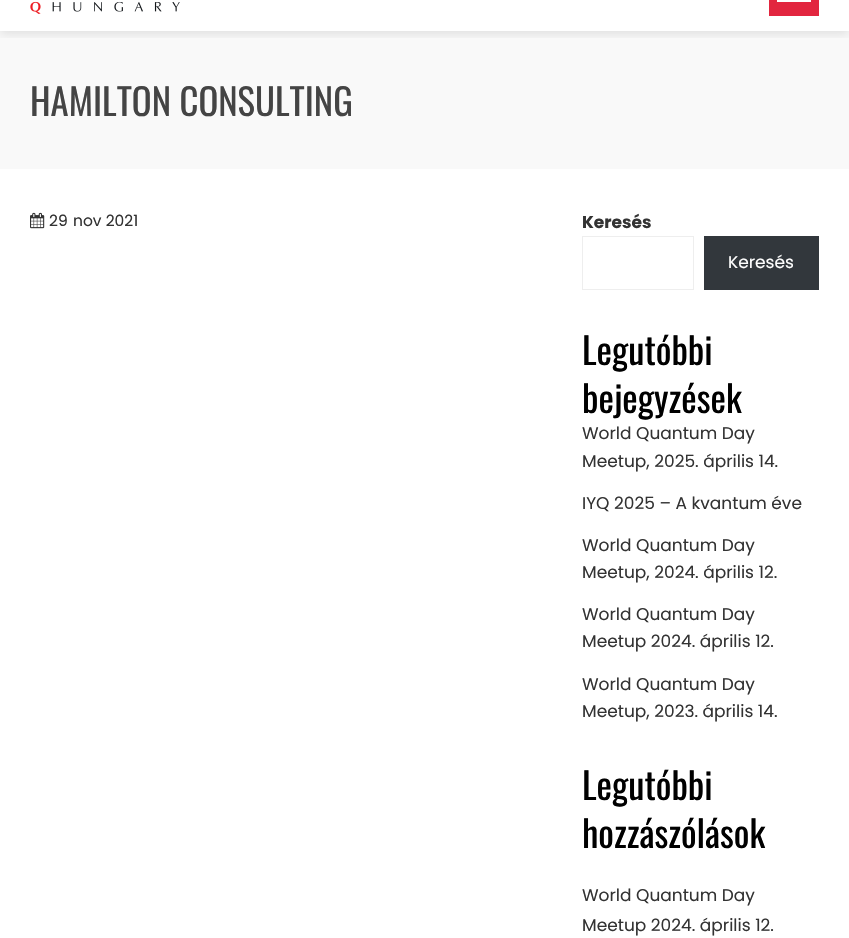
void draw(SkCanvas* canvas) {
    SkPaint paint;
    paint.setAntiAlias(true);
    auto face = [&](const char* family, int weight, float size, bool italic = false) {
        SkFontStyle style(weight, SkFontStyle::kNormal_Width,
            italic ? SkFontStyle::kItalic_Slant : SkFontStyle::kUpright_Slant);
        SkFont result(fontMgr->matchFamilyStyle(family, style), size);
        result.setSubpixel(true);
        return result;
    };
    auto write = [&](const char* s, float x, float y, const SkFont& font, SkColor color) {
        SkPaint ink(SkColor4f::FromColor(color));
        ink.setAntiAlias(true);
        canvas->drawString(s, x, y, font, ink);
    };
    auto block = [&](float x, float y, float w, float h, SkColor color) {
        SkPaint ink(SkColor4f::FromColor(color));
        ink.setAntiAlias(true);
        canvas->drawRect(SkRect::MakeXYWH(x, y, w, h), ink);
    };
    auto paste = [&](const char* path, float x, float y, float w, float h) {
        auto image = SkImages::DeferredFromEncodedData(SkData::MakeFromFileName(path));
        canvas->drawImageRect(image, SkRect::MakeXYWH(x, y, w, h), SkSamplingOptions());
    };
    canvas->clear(SK_ColorWHITE);
    block(0, 31, 849, 138, SkColorSetRGB(249, 249, 249));
    canvas->save();
    canvas->clipRect(SkRect::MakeXYWH(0, 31, 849, 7));
    paint.setColor(SkColorSetARGB(26, 0, 0, 0));
    paint.setMaskFilter(SkMaskFilter::MakeBlur(kNormal_SkBlurStyle, 5));
    canvas->drawRect(SkRect::MakeXYWH(0, -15, 849, 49), paint);
    paint.setMaskFilter(nullptr);
    canvas->restore();
    paste("pic1.png", 30, 1, 150, 13);
    block(769, 0, 50, 16, SkColorSetRGB(226, 38, 63));
    block(777, 0, 34, 2, SK_ColorWHITE);
    auto kFont1 = face("Oswald", 400, 36.75f);
    write("HAMILTON CONSULTING", 30, 116, kFont1, SkColorSetRGB(68, 68, 68));
    paste("pic2.png", 30, 212, 15, 17);
    auto kFont2 = face("Poppins", 400, 15.5f);
    write("29", 49, 226, kFont2, SkColorSetRGB(51, 51, 51));
    write("nov 2021", 73, 226, kFont2, SkColorSetRGB(51, 51, 51));
    auto kFont3 = face("Poppins", 700, 17);
    write("Keresés", 582, 228, kFont3, SkColorSetRGB(51, 51, 51));
    paint.setStyle(SkPaint::kStroke_Style);
    paint.setStrokeWidth(1);
    paint.setColor(SkColorSetRGB(238, 238, 238));
    canvas->drawRect(SkRect::MakeXYWH(582.5f, 236.5f, 111, 53), paint);
    block(704, 236, 115, 54, SkColorSetRGB(50, 55, 60));
    auto kFont4 = face("Poppins", 400, 17);
    write("Keresés", 728, 268, kFont4, SK_ColorWHITE);
    write("Legutóbbi", 582, 365, kFont1, SK_ColorBLACK);
    write("bejegyzések", 582, 413, kFont1, SK_ColorBLACK);
    write("World Quantum Day", 582, 439, kFont4, SkColorSetRGB(51, 51, 51));
    write("Meetup, 2025. április 14.", 582, 467, kFont4, SkColorSetRGB(51, 51, 51));
    write("IYQ 2025 – A kvantum éve", 582, 509, kFont4, SkColorSetRGB(51, 51, 51));
    write("World Quantum Day", 582, 551, kFont4, SkColorSetRGB(51, 51, 51));
    write("Meetup, 2024. április 12.", 582, 578, kFont4, SkColorSetRGB(51, 51, 51));
    write("World Quantum Day", 582, 620, kFont4, SkColorSetRGB(51, 51, 51));
    write("Meetup 2024. április 12.", 582, 647, kFont4, SkColorSetRGB(51, 51, 51));
    write("World Quantum Day", 582, 690, kFont4, SkColorSetRGB(51, 51, 51));
    write("Meetup, 2023. április 14.", 582, 717, kFont4, SkColorSetRGB(51, 51, 51));
    write("Legutóbbi", 582, 800, kFont1, SK_ColorBLACK);
    write("hozzászólások", 582, 848, kFont1, SK_ColorBLACK);
    write("World Quantum Day", 582, 901, kFont4, SkColorSetRGB(51, 51, 51));
    write("Meetup 2024. április 12.", 582, 931, kFont4, SkColorSetRGB(51, 51, 51));
}
